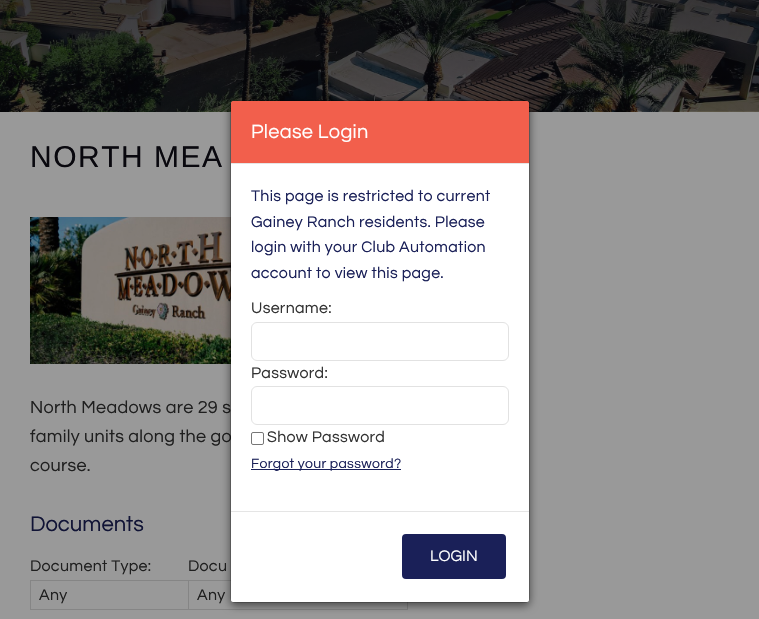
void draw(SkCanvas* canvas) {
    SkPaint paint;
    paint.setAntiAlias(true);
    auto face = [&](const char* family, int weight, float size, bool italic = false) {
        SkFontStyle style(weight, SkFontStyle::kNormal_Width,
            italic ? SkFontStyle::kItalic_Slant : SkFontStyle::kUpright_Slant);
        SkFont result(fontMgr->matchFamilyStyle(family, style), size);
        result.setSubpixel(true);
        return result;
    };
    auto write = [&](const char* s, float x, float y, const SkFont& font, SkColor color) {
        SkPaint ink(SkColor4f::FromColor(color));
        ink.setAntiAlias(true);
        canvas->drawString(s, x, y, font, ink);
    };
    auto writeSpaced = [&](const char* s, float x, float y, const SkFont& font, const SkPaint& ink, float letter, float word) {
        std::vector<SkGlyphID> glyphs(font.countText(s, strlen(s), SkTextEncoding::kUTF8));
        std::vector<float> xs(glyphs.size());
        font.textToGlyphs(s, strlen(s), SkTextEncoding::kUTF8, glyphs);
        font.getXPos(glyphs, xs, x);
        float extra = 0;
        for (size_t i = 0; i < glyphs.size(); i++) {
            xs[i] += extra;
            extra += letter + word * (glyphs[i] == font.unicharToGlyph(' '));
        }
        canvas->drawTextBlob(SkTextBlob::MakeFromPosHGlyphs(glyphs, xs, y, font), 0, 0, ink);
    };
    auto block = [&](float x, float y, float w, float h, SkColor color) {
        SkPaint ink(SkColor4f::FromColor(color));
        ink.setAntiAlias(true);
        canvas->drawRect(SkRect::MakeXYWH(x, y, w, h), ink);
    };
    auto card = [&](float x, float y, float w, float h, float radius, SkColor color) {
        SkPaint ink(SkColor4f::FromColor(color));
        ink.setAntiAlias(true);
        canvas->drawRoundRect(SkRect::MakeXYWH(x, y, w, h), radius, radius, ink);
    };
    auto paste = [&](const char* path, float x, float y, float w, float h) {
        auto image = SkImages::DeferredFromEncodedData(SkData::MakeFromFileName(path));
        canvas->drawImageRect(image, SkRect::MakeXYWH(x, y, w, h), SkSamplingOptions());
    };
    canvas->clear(SkColorSetRGB(153, 153, 153));
    paste("pic1.png", 0, 0, 759, 112);
    auto kFont1 = face("Liberation Sans", 400, 30);
    paint.setColor(SkColorSetRGB(9, 8, 14));
    writeSpaced("NORTH MEA", 30, 167, kFont1, paint, 1.5f, 0);
    paste("pic2.png", 30, 217, 201, 147);
    auto kFont2 = face("Questrial", 400, 18);
    paint.setColor(SkColorSetRGB(31, 31, 31));
    writeSpaced("North Meadows are 29 s", 30, 413, kFont2, paint, 0.3f, 0);
    writeSpaced("family units along the go", 30, 442, kFont2, paint, 0.3f, 0);
    writeSpaced("course.", 30, 471, kFont2, paint, 0.3f, 0);
    auto kFont3 = face("Questrial", 400, 22);
    write("Documents", 30, 531, kFont3, SkColorSetRGB(16, 19, 53));
    auto kFont4 = face("Questrial", 400, 16);
    writeSpaced("Document Type:", 30, 571, kFont4, paint, 0.3f, 0);
    paint.setStyle(SkPaint::kStroke_Style);
    paint.setStrokeWidth(1);
    paint.setColor(SkColorSetRGB(133, 133, 133));
    canvas->drawRect(SkRect::MakeXYWH(30.5f, 580.5f, 219, 29), paint);
    paint.setStyle(SkPaint::kFill_Style);
    paint.setColor(SkColorSetRGB(31, 31, 31));
    writeSpaced("Any", 39, 600, kFont4, paint, 0.3f, 0);
    writeSpaced("Docu", 188, 571, kFont4, paint, 0.3f, 0);
    block(249, 581, 1, 28, SkColorSetRGB(153, 153, 153));
    paint.setStyle(SkPaint::kStroke_Style);
    paint.setColor(SkColorSetRGB(133, 133, 133));
    canvas->drawRect(SkRect::MakeXYWH(188.5f, 580.5f, 219, 29), paint);
    paint.setStyle(SkPaint::kFill_Style);
    paint.setColor(SkColorSetRGB(31, 31, 31));
    writeSpaced("Any", 197, 600, kFont4, paint, 0.3f, 0);
    paint.setColor(SkColorSetARGB(128, 0, 0, 0));
    paint.setMaskFilter(SkMaskFilter::MakeBlur(kNormal_SkBlurStyle, 4.5f));
    canvas->drawRoundRect(SkRect::MakeXYWH(230, 103, 300, 503), 5, 5, paint);
    paint.setMaskFilter(nullptr);
    card(231, 101, 298, 501, 4, SK_ColorWHITE);
    paint.setStyle(SkPaint::kStroke_Style);
    paint.setColor(SkColorSetARGB(51, 0, 0, 0));
    canvas->drawRoundRect(SkRect::MakeXYWH(230.5f, 100.5f, 299, 502), 4.5f, 4.5f, paint);
    paint.setStyle(SkPaint::kFill_Style);
    paint.setColor(SkColorSetRGB(242, 95, 76));
    canvas->drawPath(SkPathBuilder().moveTo(233, 101).lineTo(527, 101).cubicTo(528, 101, 529, 102, 529, 103).lineTo(529, 164).lineTo(231, 164).lineTo(231, 103).cubicTo(231, 102, 232, 101, 233, 101).close().detach(), paint);
    block(231, 163, 298, 1, SkColorSetRGB(229, 229, 229));
    auto kFont5 = face("Questrial", 400, 20);
    paint.setColor(SK_ColorWHITE);
    writeSpaced("Please Login", 251, 138, kFont5, paint, 0.3f, 0);
    paint.setColor(SkColorSetRGB(26, 32, 88));
    writeSpaced("This page is restricted to current", 251, 201, kFont4, paint, 0.3f, 0);
    writeSpaced("Gainey Ranch residents. Please", 251, 227, kFont4, paint, 0.3f, 0);
    writeSpaced("login with your Club Automation", 251, 252, kFont4, paint, 0.3f, 0);
    writeSpaced("account to view this page.", 251, 278, kFont4, paint, 0.3f, 0);
    paint.setColor(SkColorSetRGB(51, 51, 51));
    writeSpaced("Username:", 251, 313, kFont4, paint, 0.3f, 0);
    paint.setStyle(SkPaint::kStroke_Style);
    paint.setColor(SkColorSetRGB(226, 226, 226));
    canvas->drawRoundRect(SkRect::MakeXYWH(251.5f, 322.5f, 257, 38), 5.5f, 5.5f, paint);
    paint.setStyle(SkPaint::kFill_Style);
    paint.setColor(SkColorSetRGB(51, 51, 51));
    writeSpaced("Password:", 251, 378, kFont4, paint, 0.3f, 0);
    paint.setStyle(SkPaint::kStroke_Style);
    paint.setColor(SkColorSetRGB(226, 226, 226));
    canvas->drawRoundRect(SkRect::MakeXYWH(251.5f, 386.5f, 257, 38), 5.5f, 5.5f, paint);
    paint.setColor(SkColorSetRGB(118, 118, 118));
    canvas->drawRoundRect(SkRect::MakeXYWH(251.5f, 432.5f, 12, 12), 1.5f, 1.5f, paint);
    paint.setStyle(SkPaint::kFill_Style);
    paint.setColor(SkColorSetRGB(51, 51, 51));
    writeSpaced("Show Password", 267, 442, kFont4, paint, 0.3f, 0);
    block(251, 469, 150, 1, SkColorSetRGB(26, 32, 88));
    auto kFont6 = face("Questrial", 400, 14);
    paint.setColor(SkColorSetRGB(26, 32, 88));
    writeSpaced("Forgot your password?", 251, 468, kFont6, paint, 0.3f, 0);
    paint.setColor(SK_ColorWHITE);
    canvas->drawPath(SkPathBuilder().moveTo(231, 511).lineTo(529, 511).lineTo(529, 600).cubicTo(529, 601, 528, 602, 527, 602).lineTo(233, 602).cubicTo(232, 602, 231, 601, 231, 600).close().detach(), paint);
    block(231, 511, 298, 1, SkColorSetRGB(229, 229, 229));
    paint.setColor(SkColorSetRGB(26, 32, 88));
    canvas->drawRoundRect(SkRect::MakeXYWH(403, 535, 102, 43), 3, 3, paint);
    paint.setStyle(SkPaint::kStroke_Style);
    paint.setStrokeWidth(2);
    canvas->drawRoundRect(SkRect::MakeXYWH(403, 535, 102, 43), 3, 3, paint);
    write("LOGIN", 430, 561, kFont4, SK_ColorWHITE);
}
